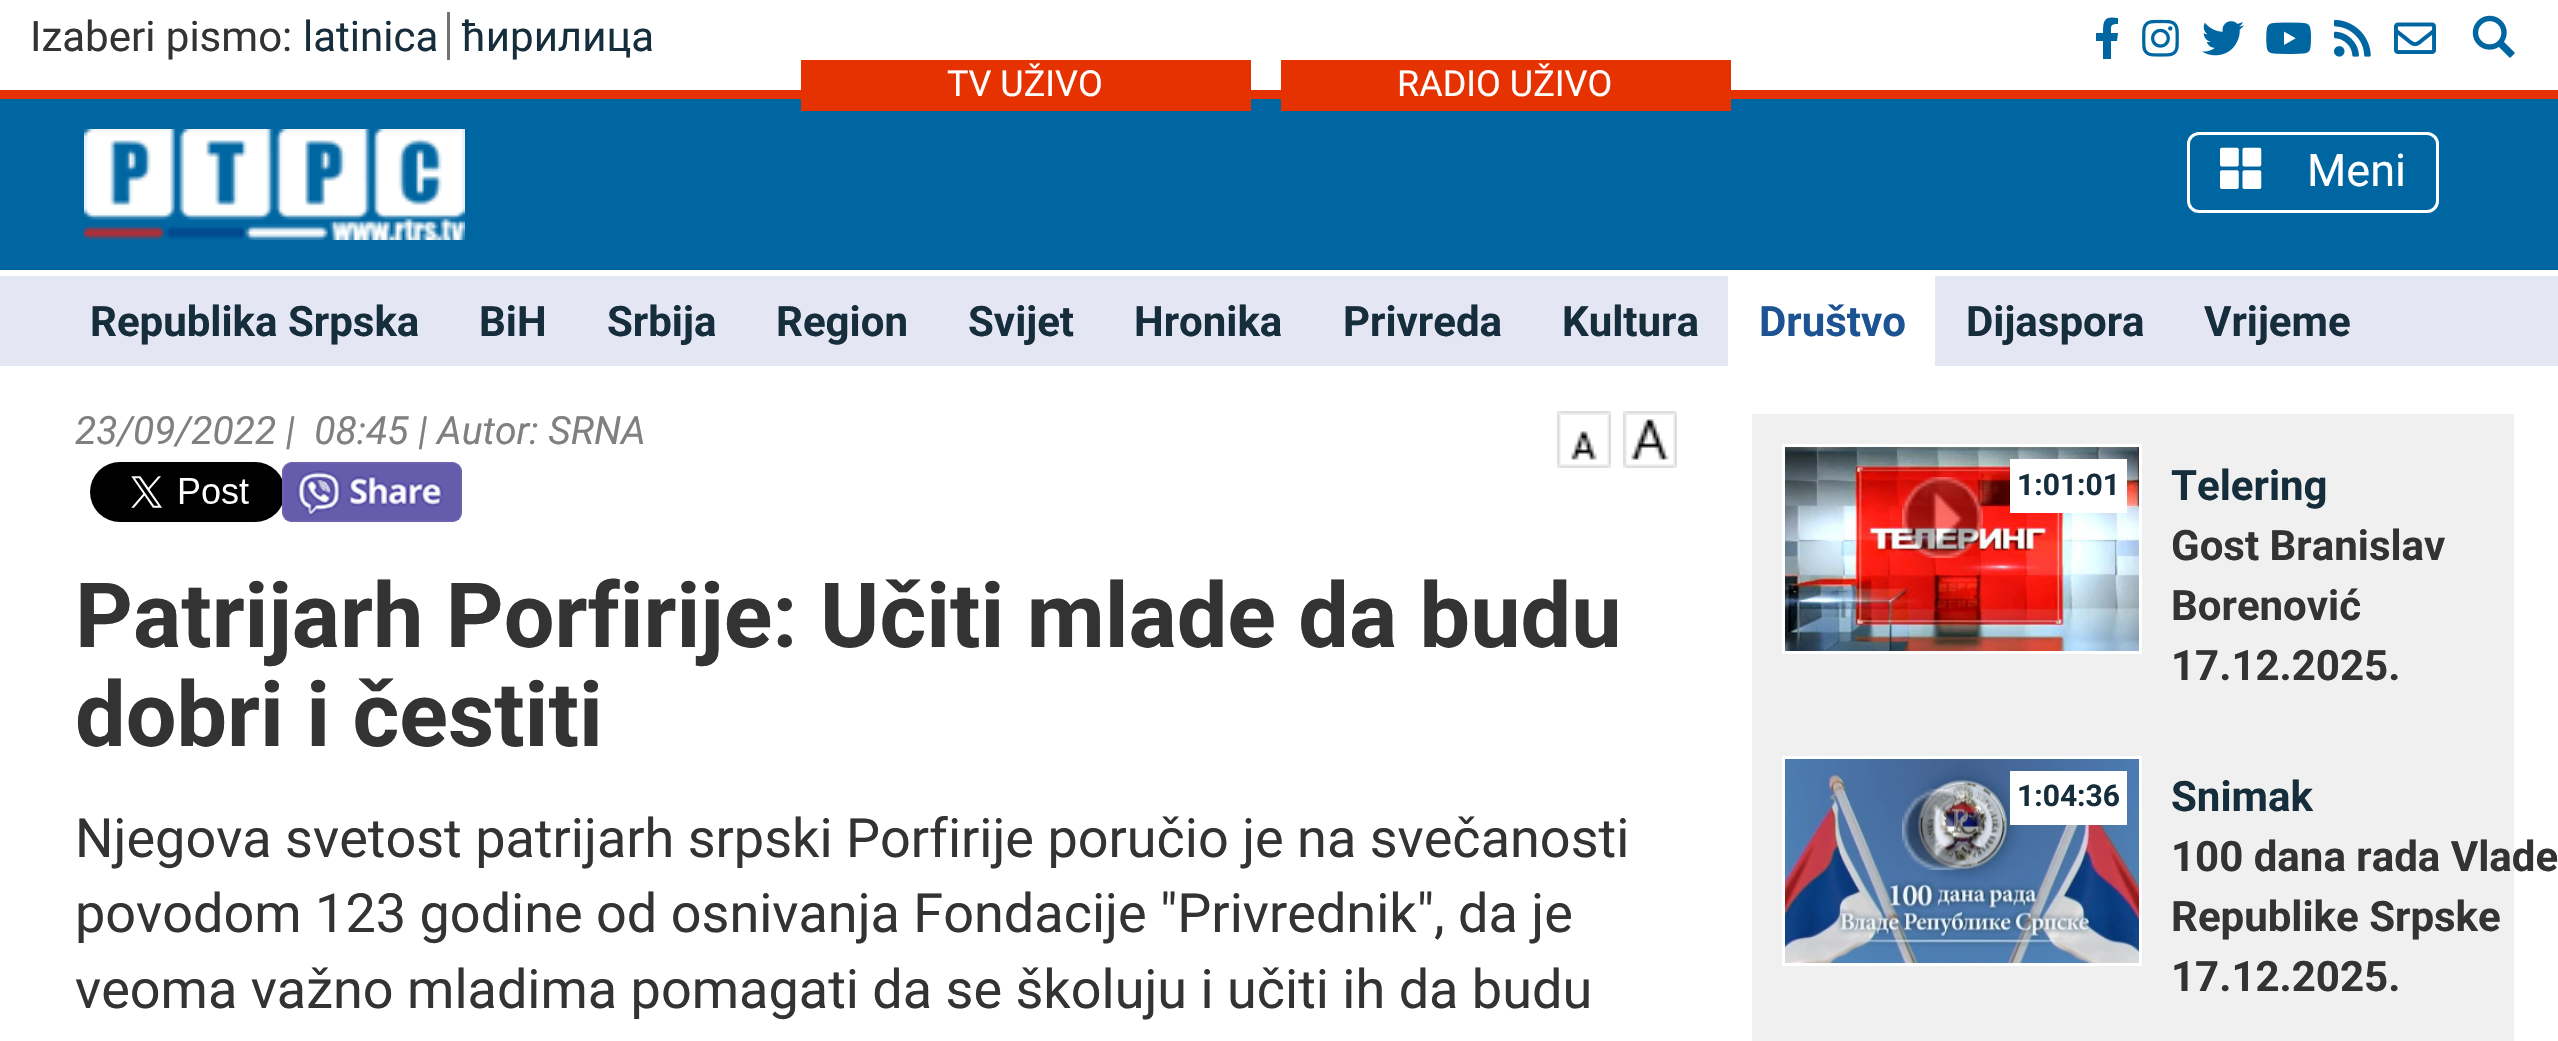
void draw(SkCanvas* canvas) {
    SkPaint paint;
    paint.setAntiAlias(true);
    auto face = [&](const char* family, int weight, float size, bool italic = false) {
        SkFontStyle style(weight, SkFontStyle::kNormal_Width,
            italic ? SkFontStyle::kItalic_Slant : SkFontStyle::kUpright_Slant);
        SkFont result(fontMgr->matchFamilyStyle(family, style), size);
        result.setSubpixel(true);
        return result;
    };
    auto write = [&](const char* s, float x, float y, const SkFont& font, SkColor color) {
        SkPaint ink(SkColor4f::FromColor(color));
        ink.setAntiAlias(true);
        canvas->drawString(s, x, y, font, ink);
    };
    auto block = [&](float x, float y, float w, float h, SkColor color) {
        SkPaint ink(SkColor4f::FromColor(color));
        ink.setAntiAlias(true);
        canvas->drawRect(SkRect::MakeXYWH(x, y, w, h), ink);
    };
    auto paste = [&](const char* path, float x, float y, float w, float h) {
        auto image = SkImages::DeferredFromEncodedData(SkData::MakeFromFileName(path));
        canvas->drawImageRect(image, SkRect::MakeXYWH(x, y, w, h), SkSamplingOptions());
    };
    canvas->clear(SK_ColorWHITE);
    block(0, 99, 2558, 171, SkColorSetRGB(0, 102, 161));
    auto kFont1 = face("Roboto", 400, 42);
    write("Izaberi pismo:", 30, 51, kFont1, SkColorSetRGB(51, 51, 51));
    write("latinica", 303, 51, kFont1, SkColorSetRGB(22, 45, 59));
    block(447, 12, 3, 48, SkColorSetRGB(114, 114, 114));
    write("ћирилица", 462, 51, kFont1, SkColorSetRGB(22, 45, 59));
    paint.setColor(SkColorSetRGB(0, 102, 161));
    canvas->drawPath(SkPathBuilder().moveTo(2117, 41).lineTo(2111, 41).lineTo(2111, 59).lineTo(2103, 59).lineTo(2103, 41).lineTo(2096, 41).lineTo(2096, 33).lineTo(2103, 33).cubicTo(2103, 19, 2105, 16, 2118, 18).lineTo(2118, 24).cubicTo(2110, 24, 2111, 26, 2111, 33).lineTo(2118, 33).close().detach(), paint);
    paste("pic1.png", 2142, 19, 37, 38);
    paste("pic2.png", 2202, 21, 42, 35);
    paste("pic3.png", 2266, 22, 45, 32);
    paste("pic4.png", 2334, 19, 37, 38);
    paste("pic5.png", 2394, 22, 42, 32);
    paste("pic6.png", 2472, 15, 43, 43);
    block(0, 90, 2558, 9, SkColorSetRGB(230, 50, 0));
    block(801, 60, 450, 51, SkColorSetRGB(230, 50, 0));
    auto kFont2 = face("Roboto", 400, 36);
    write("TV UŽIVO", 947, 96, kFont2, SK_ColorWHITE);
    block(1281, 60, 450, 51, SkColorSetRGB(230, 50, 0));
    write("RADIO UŽIVO", 1397, 96, kFont2, SK_ColorWHITE);
    paste("pic7.png", 84, 129, 381, 111);
    paint.setStyle(SkPaint::kStroke_Style);
    paint.setStrokeWidth(3);
    paint.setColor(SK_ColorWHITE);
    canvas->drawRoundRect(SkRect::MakeXYWH(2188.5f, 133.5f, 249, 78), 10.5f, 10.5f, paint);
    paste("pic8.png", 2220, 147, 42, 42);
    auto kFont3 = face("Roboto", 400, 45);
    write("Meni", 2307, 186, kFont3, SK_ColorWHITE);
    block(0, 276, 2558, 90, SkColorSetRGB(228, 230, 243));
    auto kFont4 = face("Roboto", 700, 42);
    write("Republika Srpska", 90, 336, kFont4, SkColorSetRGB(22, 45, 59));
    write("BiH", 479, 336, kFont4, SkColorSetRGB(22, 45, 59));
    write("Srbija", 607, 336, kFont4, SkColorSetRGB(22, 45, 59));
    write("Region", 776, 336, kFont4, SkColorSetRGB(22, 45, 59));
    write("Svijet", 968, 336, kFont4, SkColorSetRGB(22, 45, 59));
    write("Hronika", 1134, 336, kFont4, SkColorSetRGB(22, 45, 59));
    write("Privreda", 1343, 336, kFont4, SkColorSetRGB(22, 45, 59));
    write("Kultura", 1562, 336, kFont4, SkColorSetRGB(22, 45, 59));
    block(1728, 276, 207, 90, SK_ColorWHITE);
    write("Društvo", 1759, 336, kFont4, SkColorSetRGB(29, 83, 147));
    write("Dijaspora", 1966, 336, kFont4, SkColorSetRGB(22, 45, 59));
    write("Vrijeme", 2204, 336, kFont4, SkColorSetRGB(22, 45, 59));
    auto kFont5 = face("Roboto", 400, 39, true);
    write("23/09/2022 |  08:45 | Autor: SRNA", 75, 444, kFont5, SkColorSetRGB(129, 128, 128));
    paste("pic9.png", 1557, 411, 54, 57);
    paste("pic10.png", 1623, 411, 54, 57);
    paste("pic11.png", 90, 462, 192, 60);
    paste("pic12.png", 282, 462, 180, 60);
    auto kFont6 = face("Roboto", 700, 90);
    write("Patrijarh Porfirije: Učiti mlade da budu", 75, 647, kFont6, SkColorSetRGB(51, 51, 51));
    write("dobri i čestiti", 75, 746, kFont6, SkColorSetRGB(51, 51, 51));
    auto kFont7 = face("Roboto", 400, 54);
    write("Njegova svetost patrijarh srpski Porfirije poručio je na svečanosti", 75, 857, kFont7, SkColorSetRGB(51, 51, 51));
    write("povodom 123 godine od osnivanja Fondacije \"Privrednik\", da je", 75, 932, kFont7, SkColorSetRGB(51, 51, 51));
    write("veoma važno mladima pomagati da se školuju i učiti ih da budu", 75, 1008, kFont7, SkColorSetRGB(51, 51, 51));
    block(1752, 414, 762, 627, SkColorSetRGB(240, 240, 240));
    canvas->drawRect(SkRect::MakeXYWH(1783.5f, 445.5f, 357, 207), paint);
    paste("pic13.png", 1785, 447, 354, 204);
    paste("pic14.png", 1902, 477, 81, 81);
    block(2010, 459, 117, 54, SK_ColorWHITE);
    auto kFont8 = face("Roboto", 700, 30);
    write("1:01:01", 2017, 495, kFont8, SkColorSetRGB(22, 45, 59));
    write("Telering", 2171, 500, kFont4, SkColorSetRGB(22, 45, 59));
    write("Gost Branislav", 2171, 560, kFont4, SkColorSetRGB(51, 51, 51));
    write("Borenović", 2171, 620, kFont4, SkColorSetRGB(51, 51, 51));
    write("17.12.2025.", 2171, 680, kFont4, SkColorSetRGB(51, 51, 51));
    canvas->drawRect(SkRect::MakeXYWH(1783.5f, 757.5f, 357, 207), paint);
    paste("pic15.png", 1785, 759, 354, 204);
    paste("pic16.png", 1902, 789, 81, 81);
    block(2010, 771, 117, 54, SK_ColorWHITE);
    write("1:04:36", 2017, 806, kFont8, SkColorSetRGB(22, 45, 59));
    write("Snimak", 2171, 811, kFont4, SkColorSetRGB(22, 45, 59));
    write("100 dana rada Vlade", 2171, 871, kFont4, SkColorSetRGB(51, 51, 51));
    write("Republike Srpske", 2171, 931, kFont4, SkColorSetRGB(51, 51, 51));
    write("17.12.2025.", 2171, 991, kFont4, SkColorSetRGB(51, 51, 51));
}
